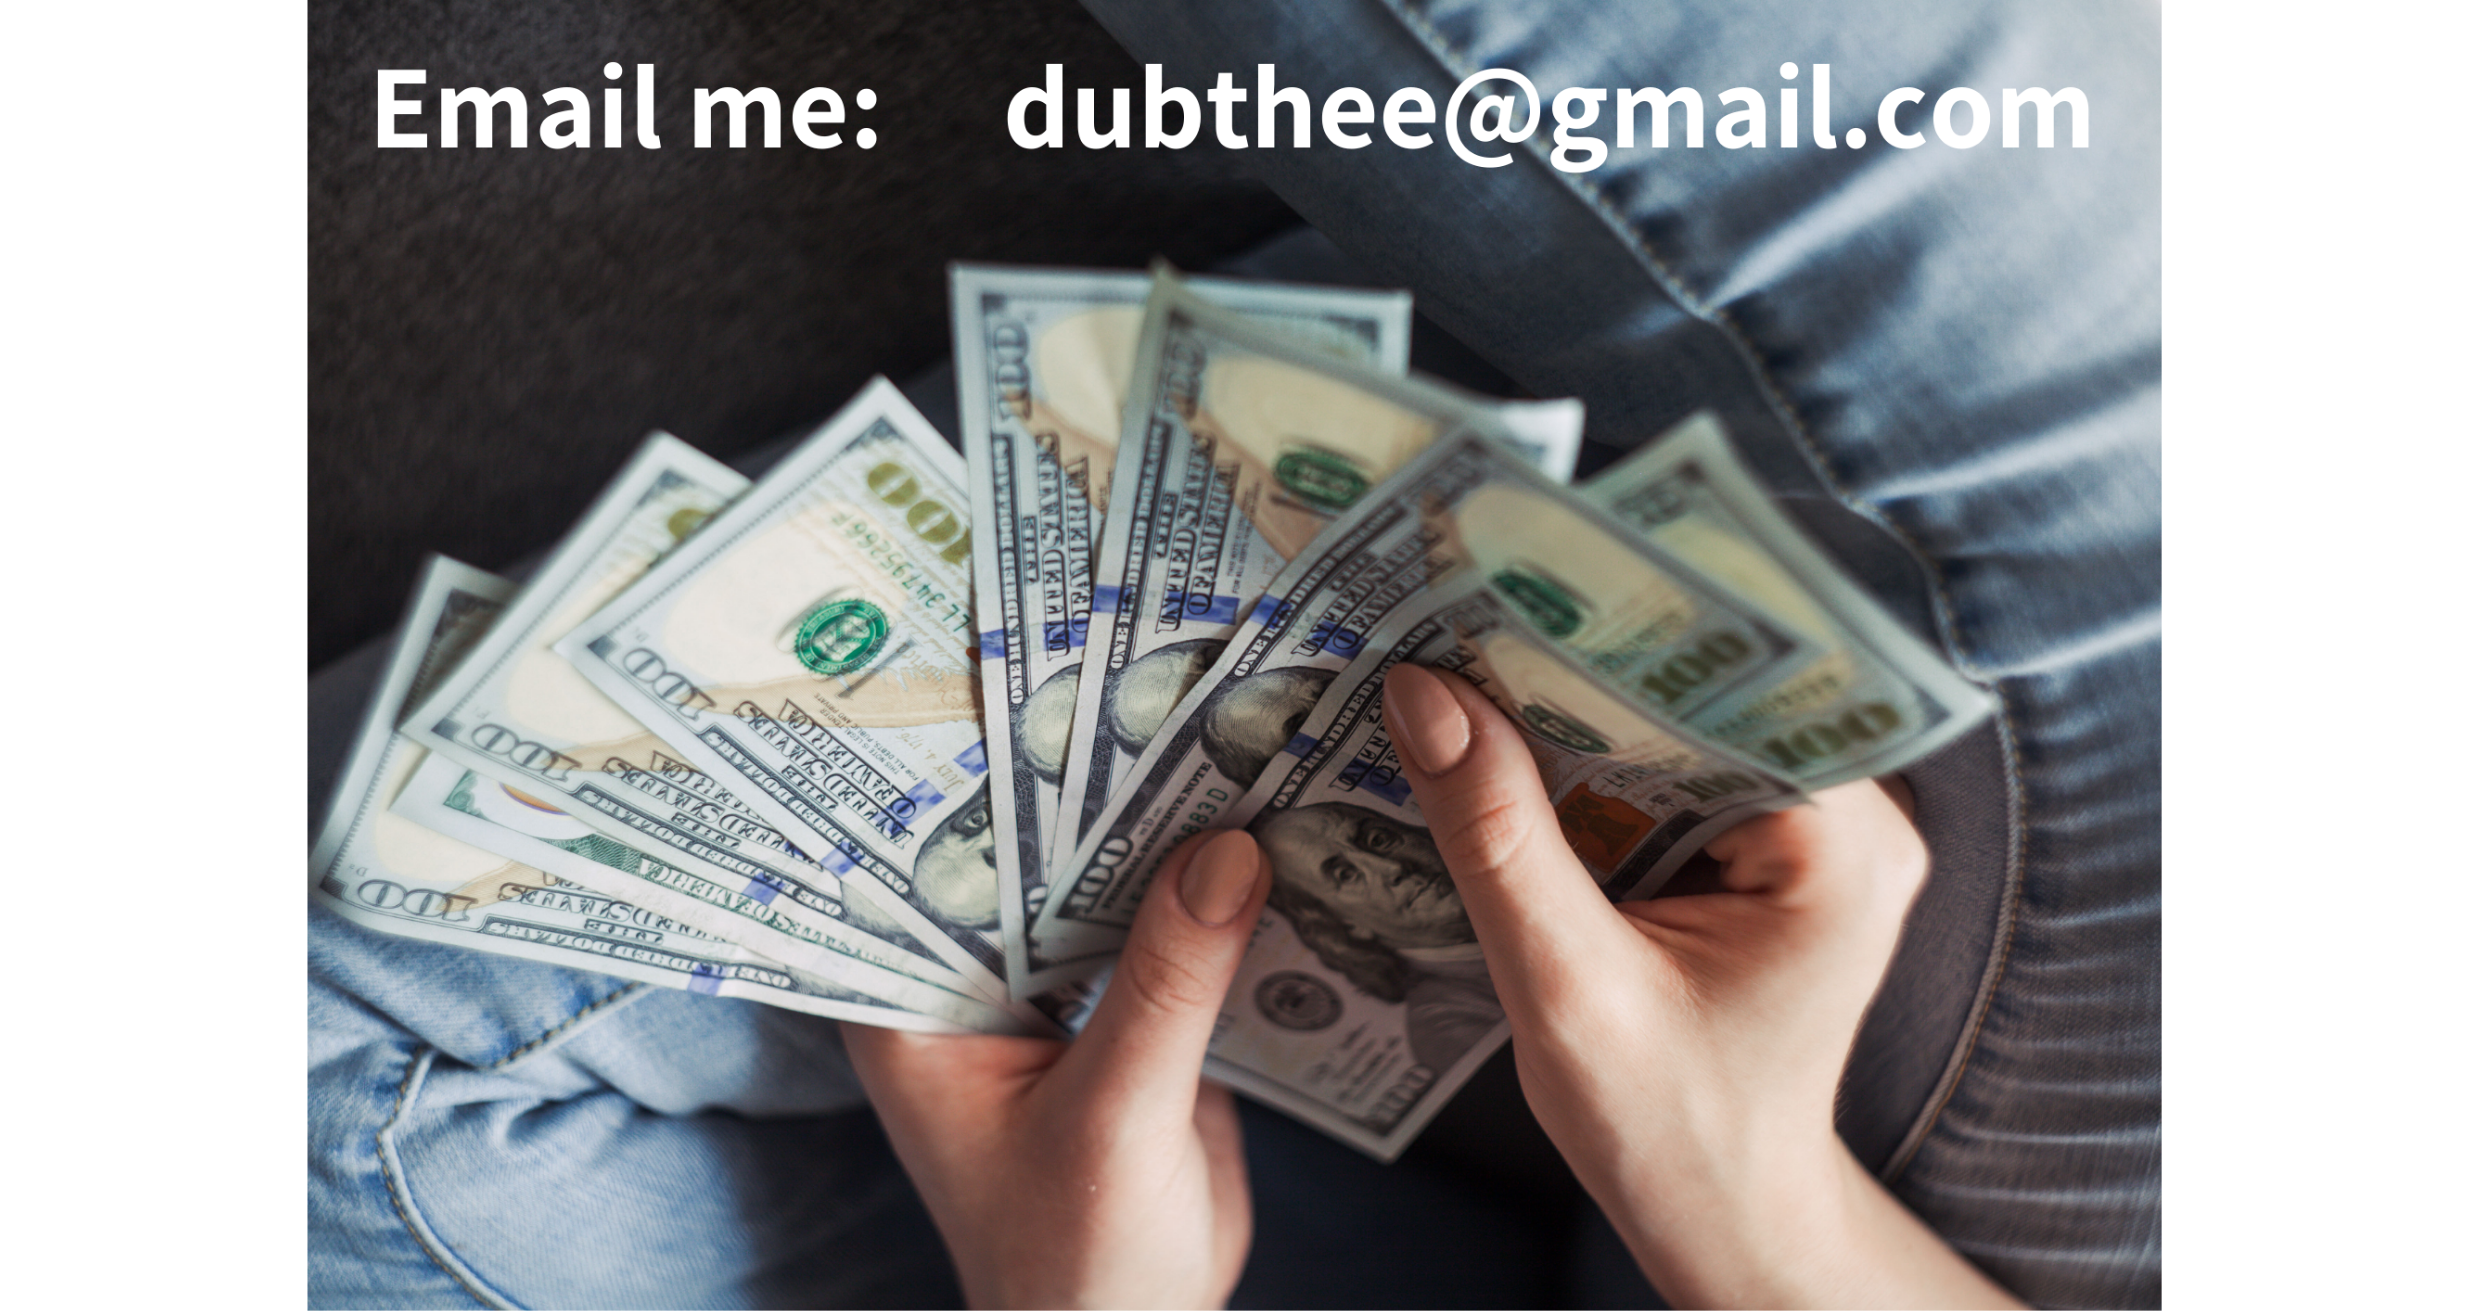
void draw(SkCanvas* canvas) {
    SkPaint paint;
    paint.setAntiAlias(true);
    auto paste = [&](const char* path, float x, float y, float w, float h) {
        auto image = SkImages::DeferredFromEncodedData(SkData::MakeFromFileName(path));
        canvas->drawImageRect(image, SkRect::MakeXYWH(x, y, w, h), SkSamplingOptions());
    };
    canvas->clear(SK_ColorWHITE);
    paste("pic1.png", 307, 0, 1855, 1311);
}
